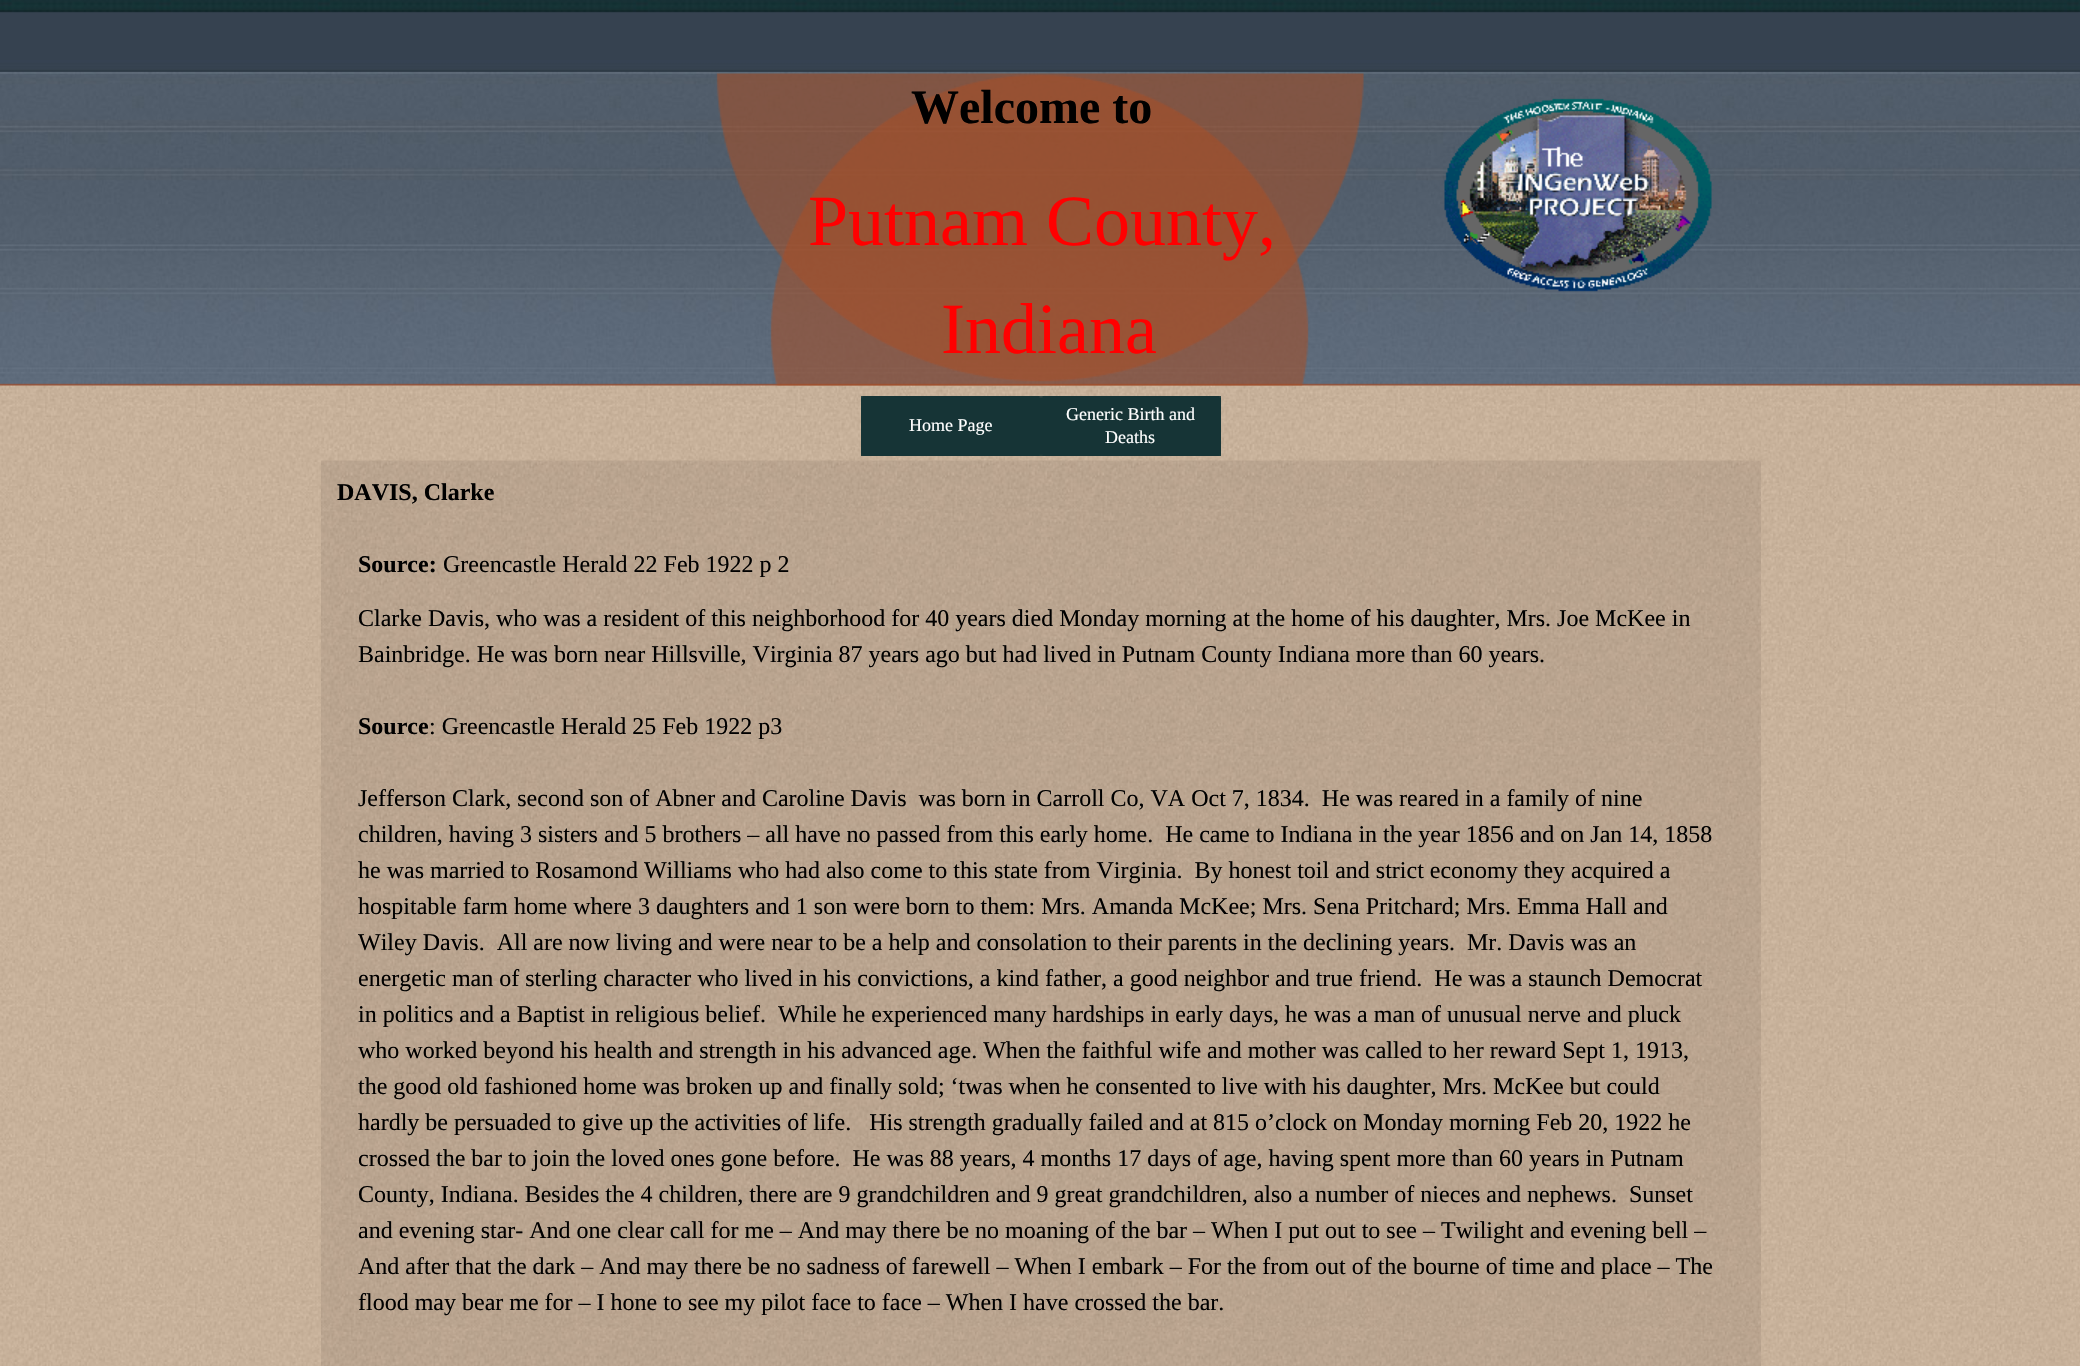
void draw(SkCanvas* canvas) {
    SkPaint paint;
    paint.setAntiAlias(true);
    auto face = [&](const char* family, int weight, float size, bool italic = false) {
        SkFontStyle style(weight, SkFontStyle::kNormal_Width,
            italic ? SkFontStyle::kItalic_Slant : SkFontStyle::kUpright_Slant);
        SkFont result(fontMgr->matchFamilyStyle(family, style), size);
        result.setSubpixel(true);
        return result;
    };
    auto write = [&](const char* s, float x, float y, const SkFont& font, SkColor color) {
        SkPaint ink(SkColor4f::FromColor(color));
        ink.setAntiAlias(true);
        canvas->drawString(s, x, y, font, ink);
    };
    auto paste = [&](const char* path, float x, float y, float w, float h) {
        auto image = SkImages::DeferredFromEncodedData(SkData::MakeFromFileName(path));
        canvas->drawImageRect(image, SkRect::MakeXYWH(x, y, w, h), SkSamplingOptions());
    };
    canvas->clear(SK_ColorWHITE);
    paste("pic1.png", 0, 385, 2080, 981);
    paste("pic2.png", 0, 0, 2080, 386);
    paste("pic3.png", 716, 73, 648, 313);
    auto kFont1 = face("Liberation Serif", 700, 48);
    write("Welcome to", 911, 123, kFont1, SK_ColorBLACK);
    paste("pic4.png", 1444, 98, 268, 194);
    auto kFont2 = face("Liberation Serif", 400, 72);
    write("Putnam County,", 808, 245, kFont2, SkColorSetRGB(255, 0, 0));
    write("Indiana", 941, 353, kFont2, SkColorSetRGB(255, 0, 0));
    paste("pic5.png", 861, 396, 180, 60);
    auto kFont3 = face("Liberation Serif", 400, 18);
    write("Home Page", 909, 431, kFont3, SK_ColorWHITE);
    paste("pic6.png", 1041, 396, 180, 60);
    write("Generic Birth and", 1066, 420, kFont3, SK_ColorWHITE);
    write("Deaths", 1105, 443, kFont3, SK_ColorWHITE);
    paste("pic7.png", 321, 460, 1440, 906);
    auto kFont4 = face("Liberation Serif", 700, 24);
    write("DAVIS, Clarke", 337, 500, kFont4, SK_ColorBLACK);
    write("Source:", 358, 572, kFont4, SK_ColorBLACK);
    auto kFont5 = face("Liberation Serif", 400, 24);
    write("Greencastle Herald 22 Feb 1922 p 2", 443, 572, kFont5, SK_ColorBLACK);
    write("Clarke Davis, who was a resident of this neighborhood for 40 years died Monday morning at the home of his daughter, Mrs. Joe McKee in", 358, 626, kFont5, SK_ColorBLACK);
    write("Bainbridge. He was born near Hillsville, Virginia 87 years ago but had lived in Putnam County Indiana more than 60 years.", 358, 662, kFont5, SK_ColorBLACK);
    write("Source", 358, 734, kFont4, SK_ColorBLACK);
    write(": Greencastle Herald 25 Feb 1922 p3", 429, 734, kFont5, SK_ColorBLACK);
    write("Jefferson Clark, second son of Abner and Caroline Davis  was born in Carroll Co, VA Oct 7, 1834.  He was reared in a family of nine", 358, 806, kFont5, SK_ColorBLACK);
    write("children, having 3 sisters and 5 brothers – all have no passed from this early home.  He came to Indiana in the year 1856 and on Jan 14, 1858", 358, 842, kFont5, SK_ColorBLACK);
    write("he was married to Rosamond Williams who had also come to this state from Virginia.  By honest toil and strict economy they acquired a", 358, 878, kFont5, SK_ColorBLACK);
    write("hospitable farm home where 3 daughters and 1 son were born to them: Mrs. Amanda McKee; Mrs. Sena Pritchard; Mrs. Emma Hall and", 358, 914, kFont5, SK_ColorBLACK);
    write("Wiley Davis.  All are now living and were near to be a help and consolation to their parents in the declining years.  Mr. Davis was an", 358, 950, kFont5, SK_ColorBLACK);
    write("energetic man of sterling character who lived in his convictions, a kind father, a good neighbor and true friend.  He was a staunch Democrat", 358, 986, kFont5, SK_ColorBLACK);
    write("in politics and a Baptist in religious belief.  While he experienced many hardships in early days, he was a man of unusual nerve and pluck", 358, 1022, kFont5, SK_ColorBLACK);
    write("who worked beyond his health and strength in his advanced age. When the faithful wife and mother was called to her reward Sept 1, 1913,", 358, 1058, kFont5, SK_ColorBLACK);
    write("the good old fashioned home was broken up and finally sold; ‘twas when he consented to live with his daughter, Mrs. McKee but could", 358, 1094, kFont5, SK_ColorBLACK);
    write("hardly be persuaded to give up the activities of life.   His strength gradually failed and at 815 o’clock on Monday morning Feb 20, 1922 he", 358, 1130, kFont5, SK_ColorBLACK);
    write("crossed the bar to join the loved ones gone before.  He was 88 years, 4 months 17 days of age, having spent more than 60 years in Putnam", 358, 1166, kFont5, SK_ColorBLACK);
    write("County, Indiana. Besides the 4 children, there are 9 grandchildren and 9 great grandchildren, also a number of nieces and nephews.  Sunset", 358, 1202, kFont5, SK_ColorBLACK);
    write("and evening star- And one clear call for me – And may there be no moaning of the bar – When I put out to see – Twilight and evening bell –", 358, 1238, kFont5, SK_ColorBLACK);
    write("And after that the dark – And may there be no sadness of farewell – When I embark – For the from out of the bourne of time and place – The", 358, 1274, kFont5, SK_ColorBLACK);
    write("flood may bear me for – I hone to see my pilot face to face – When I have crossed the bar.", 358, 1310, kFont5, SK_ColorBLACK);
}
